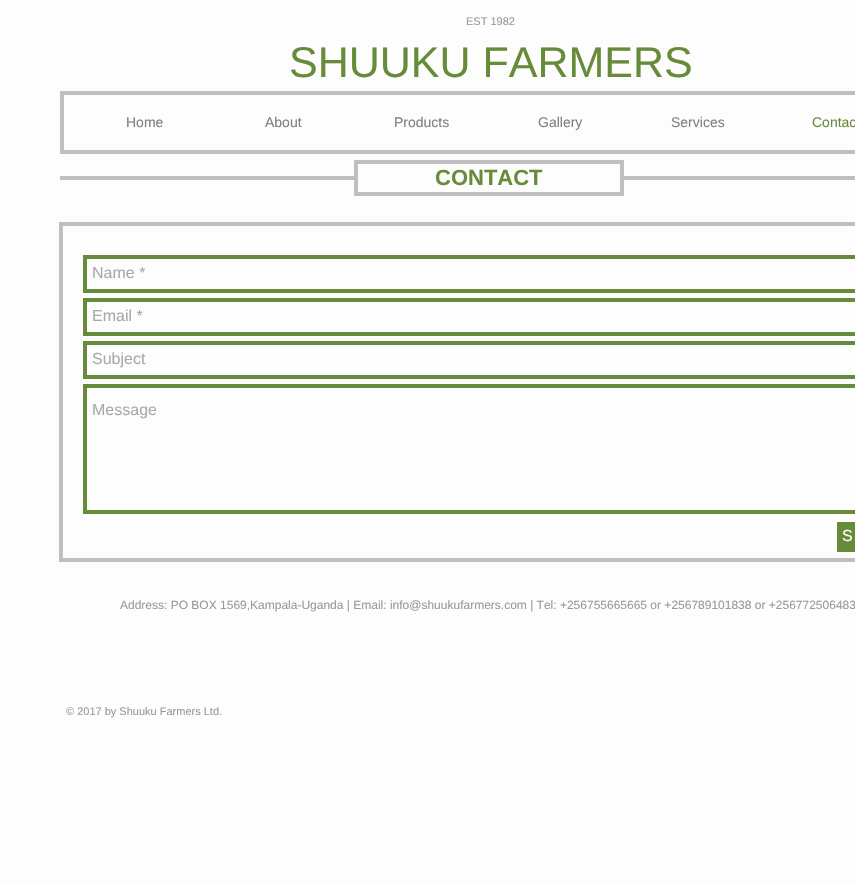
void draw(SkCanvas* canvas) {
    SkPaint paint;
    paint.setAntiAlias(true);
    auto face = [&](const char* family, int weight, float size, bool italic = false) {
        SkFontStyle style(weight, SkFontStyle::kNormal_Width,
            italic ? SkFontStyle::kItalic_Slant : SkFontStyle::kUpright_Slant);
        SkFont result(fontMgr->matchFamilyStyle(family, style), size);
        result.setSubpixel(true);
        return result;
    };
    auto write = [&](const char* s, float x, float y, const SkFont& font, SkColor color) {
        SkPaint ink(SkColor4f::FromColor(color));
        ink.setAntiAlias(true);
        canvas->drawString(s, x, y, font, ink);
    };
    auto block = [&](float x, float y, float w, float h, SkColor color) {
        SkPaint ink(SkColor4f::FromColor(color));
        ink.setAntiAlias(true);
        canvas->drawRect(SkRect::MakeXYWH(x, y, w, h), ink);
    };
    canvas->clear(SkColorSetRGB(254, 253, 253));
    auto kFont1 = face("Liberation Sans", 400, 11);
    write("EST 1982", 466, 25, kFont1, SkColorSetRGB(153, 153, 153));
    auto kFont2 = face("Liberation Sans", 400, 43);
    write("SHUUKU FARMERS", 289, 77, kFont2, SkColorSetRGB(103, 140, 57));
    paint.setStyle(SkPaint::kStroke_Style);
    paint.setStrokeWidth(4);
    paint.setColor(SkColorSetRGB(191, 191, 191));
    canvas->drawRect(SkRect::MakeXYWH(62, 93, 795, 59), paint);
    auto kFont3 = face("Liberation Sans", 400, 14);
    write("Home", 126, 127, kFont3, SkColorSetRGB(127, 127, 127));
    write("About", 265, 127, kFont3, SkColorSetRGB(127, 127, 127));
    write("Products", 394, 127, kFont3, SkColorSetRGB(127, 127, 127));
    write("Gallery", 538, 127, kFont3, SkColorSetRGB(127, 127, 127));
    write("Services", 671, 127, kFont3, SkColorSetRGB(127, 127, 127));
    write("Contac", 812, 127, kFont3, SkColorSetRGB(103, 140, 57));
    canvas->drawRect(SkRect::MakeXYWH(356, 162, 266, 32), paint);
    block(60, 176, 297, 4, SkColorSetRGB(191, 191, 191));
    auto kFont4 = face("Liberation Sans", 700, 22);
    write("CONTACT", 435, 185, kFont4, SkColorSetRGB(103, 140, 57));
    block(621, 176, 234, 4, SkColorSetRGB(191, 191, 191));
    canvas->drawRect(SkRect::MakeXYWH(61, 224, 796, 336), paint);
    paint.setColor(SkColorSetRGB(103, 140, 57));
    canvas->drawRect(SkRect::MakeXYWH(85, 257, 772, 34), paint);
    auto kFont5 = face("Liberation Sans", 400, 16);
    write("Name *", 92, 278, kFont5, SkColorSetRGB(169, 169, 169));
    canvas->drawRect(SkRect::MakeXYWH(85, 300, 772, 34), paint);
    write("Email *", 92, 321, kFont5, SkColorSetRGB(169, 169, 169));
    canvas->drawRect(SkRect::MakeXYWH(85, 343, 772, 34), paint);
    write("Subject", 92, 364, kFont5, SkColorSetRGB(169, 169, 169));
    canvas->drawRect(SkRect::MakeXYWH(85, 386, 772, 126), paint);
    write("Message", 92, 415, kFont5, SkColorSetRGB(169, 169, 169));
    block(837, 522, 18, 30, SkColorSetRGB(103, 140, 57));
    write("S", 842, 541, kFont5, SkColorSetRGB(254, 253, 253));
    auto kFont6 = face("Liberation Sans", 400, 12);
    write("Address: PO BOX 1569,Kampala-Uganda | Email: info@shuukufarmers.com | Tel: +256755665665 or +256789101838 or +256772506483", 120, 609, kFont6, SkColorSetRGB(153, 153, 153));
    write("© 2017 by Shuuku Farmers Ltd.", 66, 715, kFont1, SkColorSetRGB(153, 153, 153));
}
